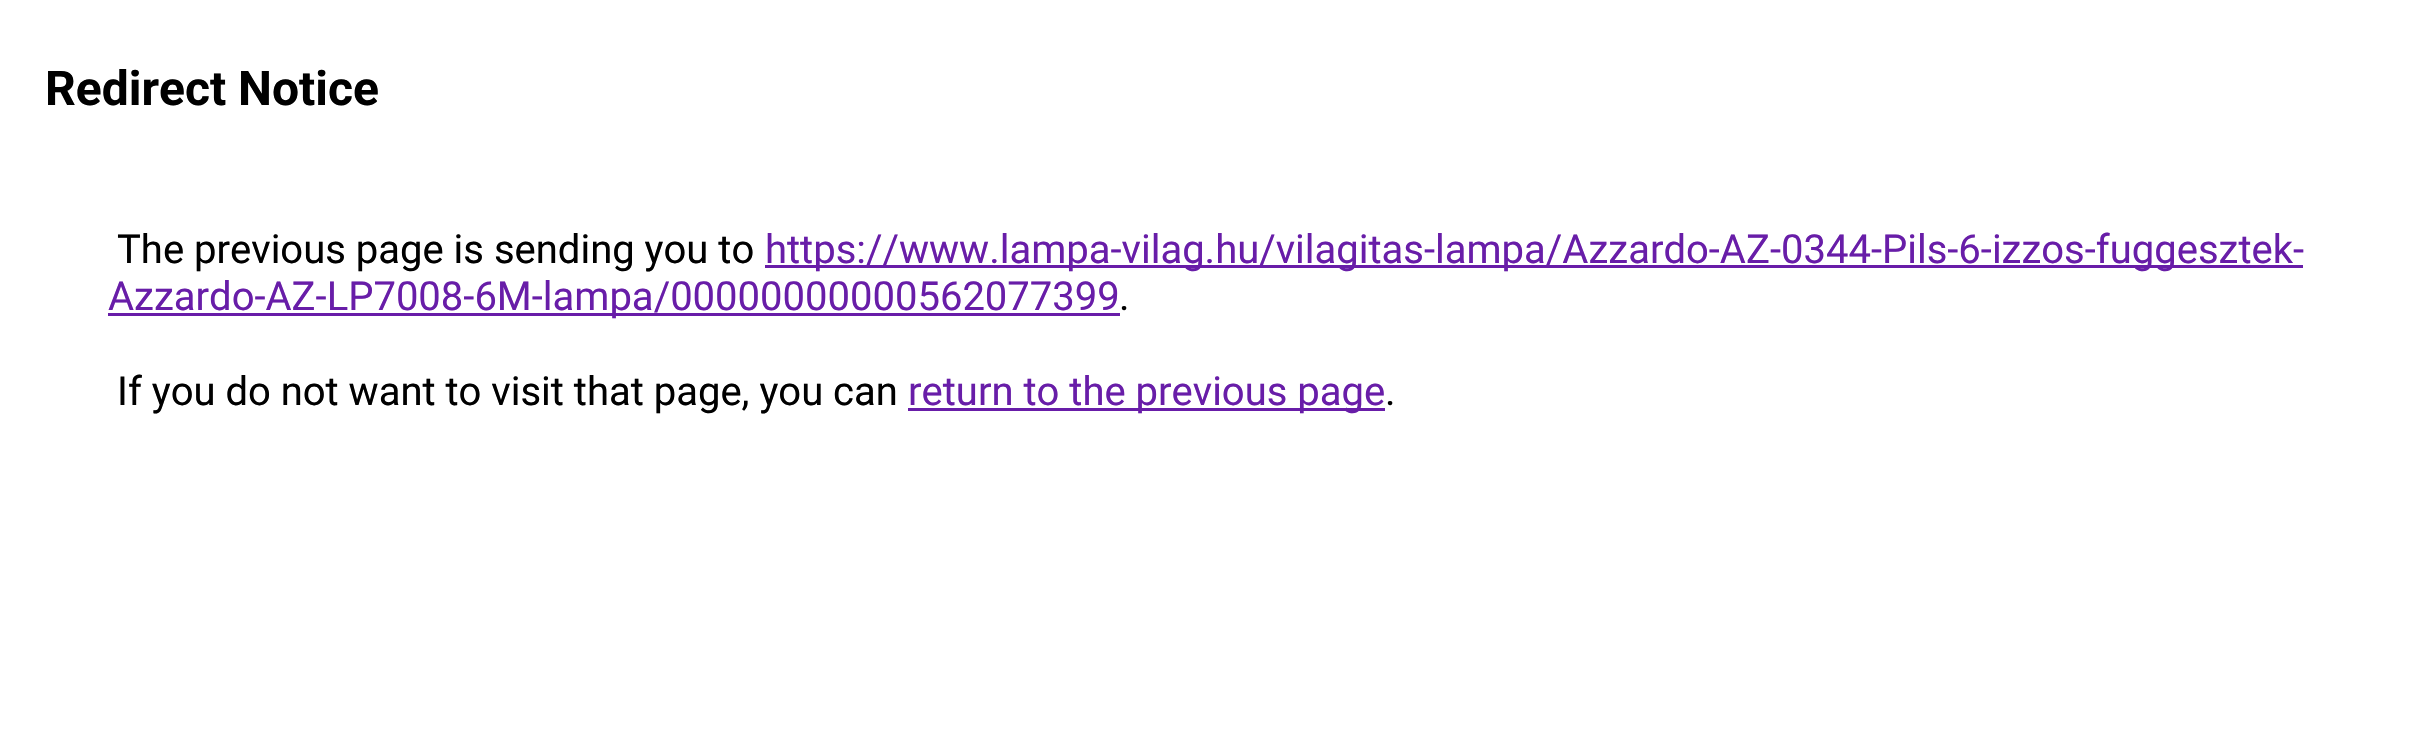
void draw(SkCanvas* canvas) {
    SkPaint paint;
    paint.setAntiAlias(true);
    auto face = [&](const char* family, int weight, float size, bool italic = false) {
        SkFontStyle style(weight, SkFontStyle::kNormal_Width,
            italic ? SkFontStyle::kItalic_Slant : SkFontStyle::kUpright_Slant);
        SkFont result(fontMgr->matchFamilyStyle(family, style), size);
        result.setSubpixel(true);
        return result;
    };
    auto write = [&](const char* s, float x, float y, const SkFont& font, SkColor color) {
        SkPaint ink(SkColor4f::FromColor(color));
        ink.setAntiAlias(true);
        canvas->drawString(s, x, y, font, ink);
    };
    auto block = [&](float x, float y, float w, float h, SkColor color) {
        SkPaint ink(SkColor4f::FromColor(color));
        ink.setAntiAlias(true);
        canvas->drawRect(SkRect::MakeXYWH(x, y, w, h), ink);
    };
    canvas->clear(SK_ColorWHITE);
    auto kFont1 = face("Roboto", 700, 48);
    write("Redirect Notice", 45, 105, kFont1, SK_ColorBLACK);
    auto kFont2 = face("Roboto", 400, 40);
    write("The previous page is sending you to", 117, 263, kFont2, SK_ColorBLACK);
    block(765, 265, 1538, 3, SkColorSetRGB(104, 29, 168));
    write("https://www.lampa-vilag.hu/vilagitas-lampa/Azzardo-AZ-0344-Pils-6-izzos-fuggesztek-", 765, 263, kFont2, SkColorSetRGB(104, 29, 168));
    block(108, 313, 1012, 3, SkColorSetRGB(104, 29, 168));
    write("Azzardo-AZ-LP7008-6M-lampa/00000000000562077399", 108, 310, kFont2, SkColorSetRGB(104, 29, 168));
    write(".", 1119, 310, kFont2, SK_ColorBLACK);
    write("If you do not want to visit that page, you can", 117, 405, kFont2, SK_ColorBLACK);
    block(908, 408, 477, 3, SkColorSetRGB(104, 29, 168));
    write("return to the previous page", 908, 405, kFont2, SkColorSetRGB(104, 29, 168));
    write(".", 1385, 405, kFont2, SK_ColorBLACK);
}
